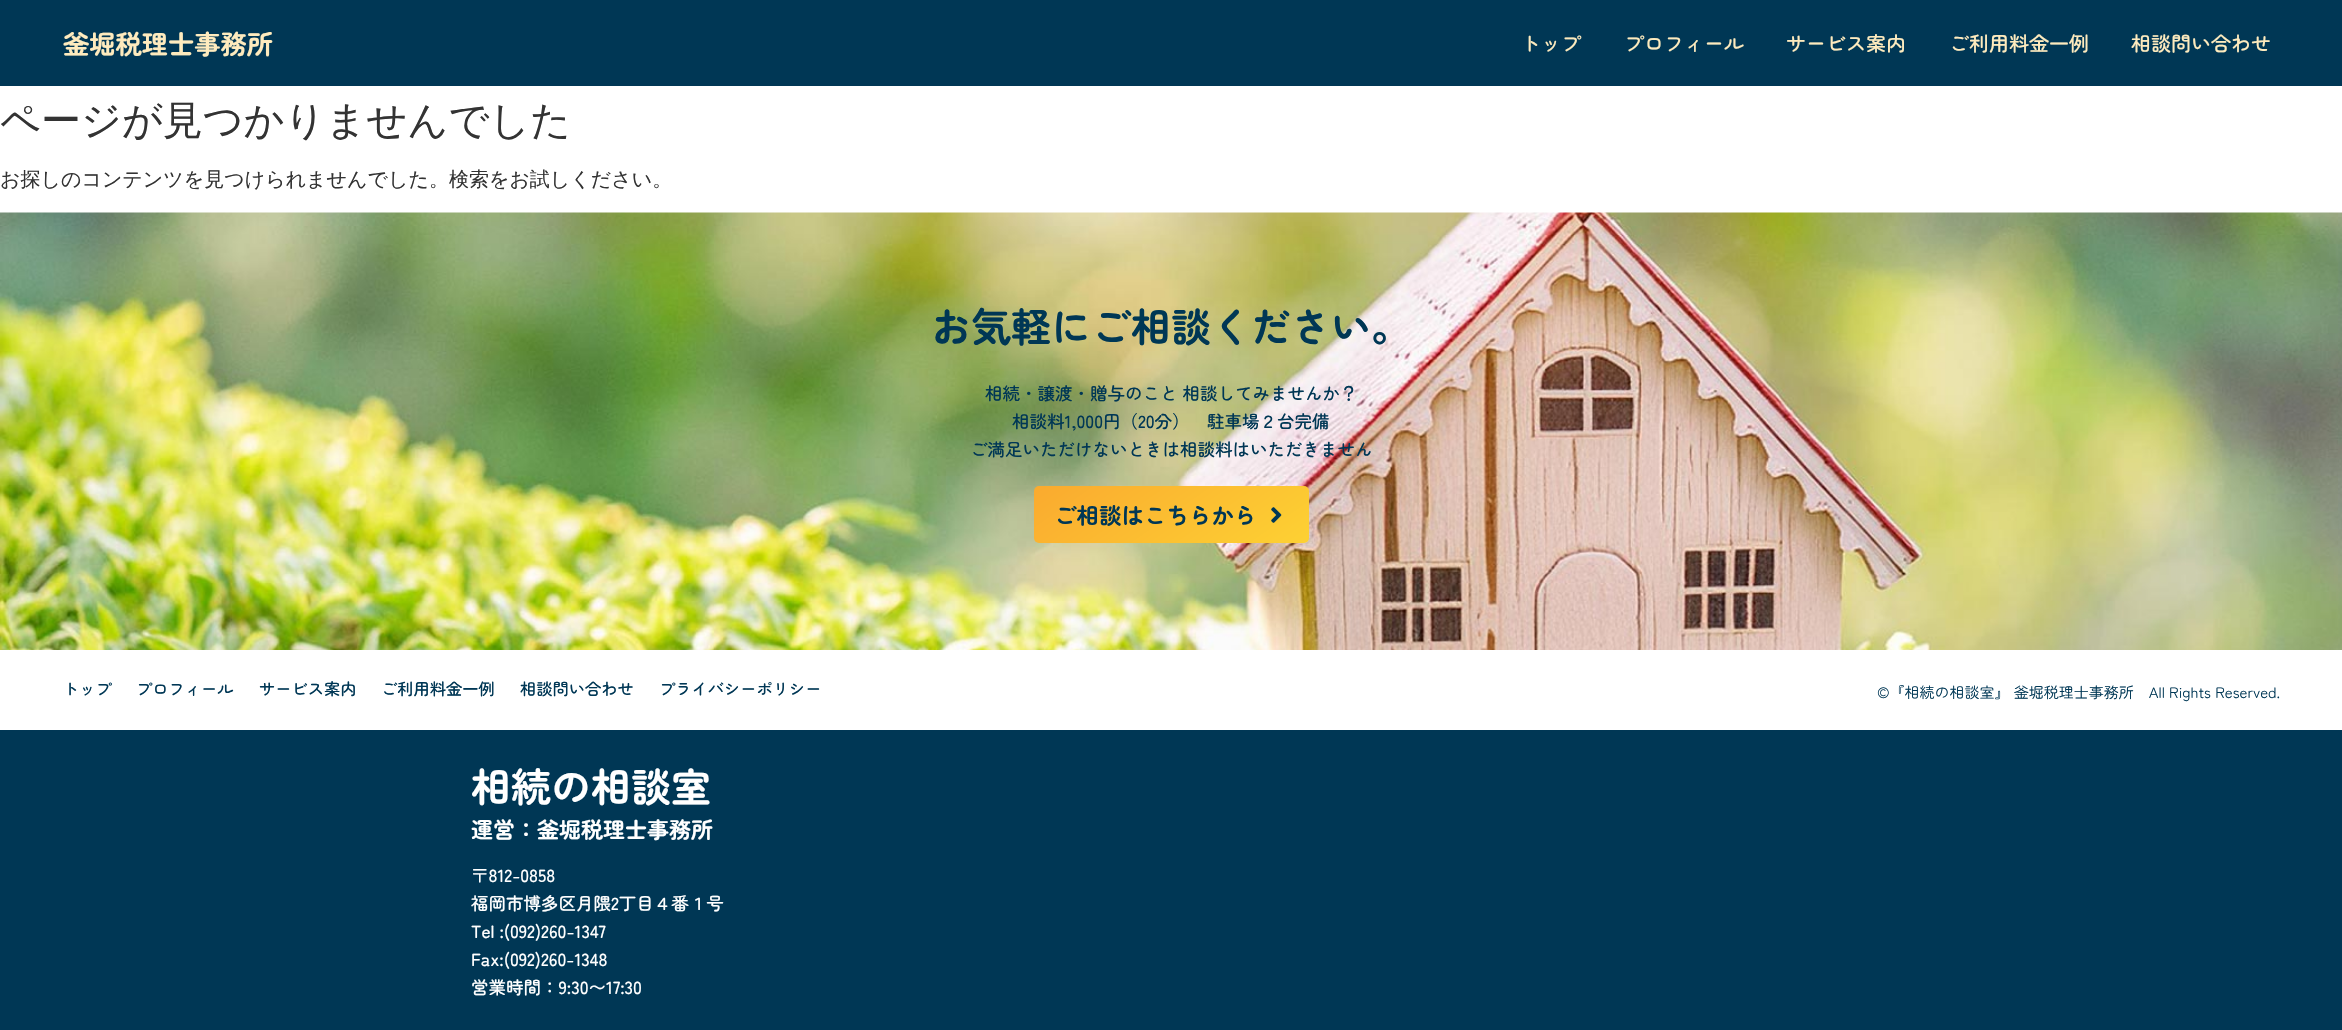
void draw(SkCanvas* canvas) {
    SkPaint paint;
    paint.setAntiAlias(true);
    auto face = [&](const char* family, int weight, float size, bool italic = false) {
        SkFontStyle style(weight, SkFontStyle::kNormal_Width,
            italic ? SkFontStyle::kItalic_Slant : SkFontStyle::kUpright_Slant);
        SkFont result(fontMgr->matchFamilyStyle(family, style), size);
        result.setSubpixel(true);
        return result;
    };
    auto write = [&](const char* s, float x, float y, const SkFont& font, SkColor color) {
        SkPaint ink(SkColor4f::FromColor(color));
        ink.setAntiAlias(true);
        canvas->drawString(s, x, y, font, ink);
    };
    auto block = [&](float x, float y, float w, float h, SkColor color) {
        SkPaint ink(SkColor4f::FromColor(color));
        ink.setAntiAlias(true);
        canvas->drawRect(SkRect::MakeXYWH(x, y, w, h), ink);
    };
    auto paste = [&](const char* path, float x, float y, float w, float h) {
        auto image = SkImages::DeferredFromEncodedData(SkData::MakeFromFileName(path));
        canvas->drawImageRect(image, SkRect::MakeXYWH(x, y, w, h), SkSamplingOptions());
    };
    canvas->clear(SK_ColorWHITE);
    block(0, 0, 2342, 86, SkColorSetRGB(0, 55, 85));
    auto kFont1 = face("Zen Maru Gothic", 700, 26.25f);
    write("釜堀税理士事務所", 63, 54, kFont1, SkColorSetRGB(254, 235, 190));
    auto kFont2 = face("Zen Maru Gothic", 500, 20);
    write("トップ", 1521, 51, kFont2, SkColorSetRGB(254, 235, 190));
    write("プロフィール", 1624, 51, kFont2, SkColorSetRGB(254, 235, 190));
    write("サービス案内", 1786, 51, kFont2, SkColorSetRGB(254, 235, 190));
    write("ご利用料金一例", 1949, 51, kFont2, SkColorSetRGB(254, 235, 190));
    write("相談問い合わせ", 2131, 51, kFont2, SkColorSetRGB(254, 235, 190));
    auto kFont3 = face("WenQuanYi Zen Hei", 500, 40);
    write("ページが見つかりませんでした", 0, 134, kFont3, SkColorSetRGB(51, 51, 51));
    auto kFont4 = face("WenQuanYi Zen Hei", 500, 20);
    write("お探しのコンテンツを見つけられませんでした。検索をお試しください。", 0, 186, kFont4, SkColorSetRGB(51, 51, 51));
    paste("pic1.png", 0, 212, 2342, 438);
    auto kFont5 = face("Zen Maru Gothic", 700, 40);
    write("お気軽にご相談ください。", 931, 342, kFont5, SkColorSetRGB(0, 55, 85));
    auto kFont6 = face("Zen Maru Gothic", 500, 17.5f);
    write("相続・譲渡・贈与のこと 相談してみませんか？", 985, 400, kFont6, SkColorSetRGB(0, 55, 85));
    write("相談料1,000円（20分）　駐車場２台完備", 1012, 428, kFont6, SkColorSetRGB(0, 55, 85));
    write("ご満足いただけないときは相談料はいただきません", 970, 456, kFont6, SkColorSetRGB(0, 55, 85));
    {
        const SkColor colors[] = {SkColorSetRGB(250, 170, 47), SkColorSetRGB(253, 209, 51)};
        const float stops[] = {0, 1};
        const SkPoint ends[] = {{1113, 431}, {1230, 598}};
        paint.setShader(SkGradientShader::MakeLinear(ends, colors, stops, 2, SkTileMode::kClamp));
        paint.setAlpha(255);
    }
    canvas->drawRoundRect(SkRect::MakeXYWH(1034, 486, 275, 57), 5, 5, paint);
    auto kFont7 = face("Zen Maru Gothic", 700, 22.5f);
    write("ご相談はこちらから", 1054, 524, kFont7, SkColorSetRGB(0, 55, 85));
    paste("pic2.png", 1271, 507, 11, 16);
    auto kFont8 = face("Zen Maru Gothic", 500, 16.25f);
    write("トップ", 63, 695, kFont8, SkColorSetRGB(0, 55, 85));
    write("プロフィール", 136, 695, kFont8, SkColorSetRGB(0, 55, 85));
    write("サービス案内", 259, 695, kFont8, SkColorSetRGB(0, 55, 85));
    write("ご利用料金一例", 381, 695, kFont8, SkColorSetRGB(0, 55, 85));
    write("相談問い合わせ", 520, 695, kFont8, SkColorSetRGB(0, 55, 85));
    write("プライバシーポリシー", 659, 695, kFont8, SkColorSetRGB(0, 55, 85));
    auto kFont9 = face("Zen Maru Gothic", 400, 15);
    write("©『相続の相談室』 釜堀税理士事務所　All Rights Reserved.", 1877, 698, kFont9, SkColorSetRGB(0, 55, 85));
    block(0, 730, 2342, 300, SkColorSetRGB(0, 55, 85));
    write("相続の相談室", 471, 802, kFont5, SK_ColorWHITE);
    auto kFont10 = face("Zen Maru Gothic", 700, 22);
    write("運営：釜堀税理士事務所", 471, 838, kFont10, SK_ColorWHITE);
    write("〒812-0858", 471, 882, kFont6, SK_ColorWHITE);
    write("福岡市博多区月隈2丁目４番１号", 471, 910, kFont6, SK_ColorWHITE);
    write("Tel :(092)260-1347", 471, 938, kFont6, SK_ColorWHITE);
    write("Fax:(092)260-1348", 471, 966, kFont6, SK_ColorWHITE);
    write("営業時間：9:30〜17:30", 471, 994, kFont6, SK_ColorWHITE);
}
